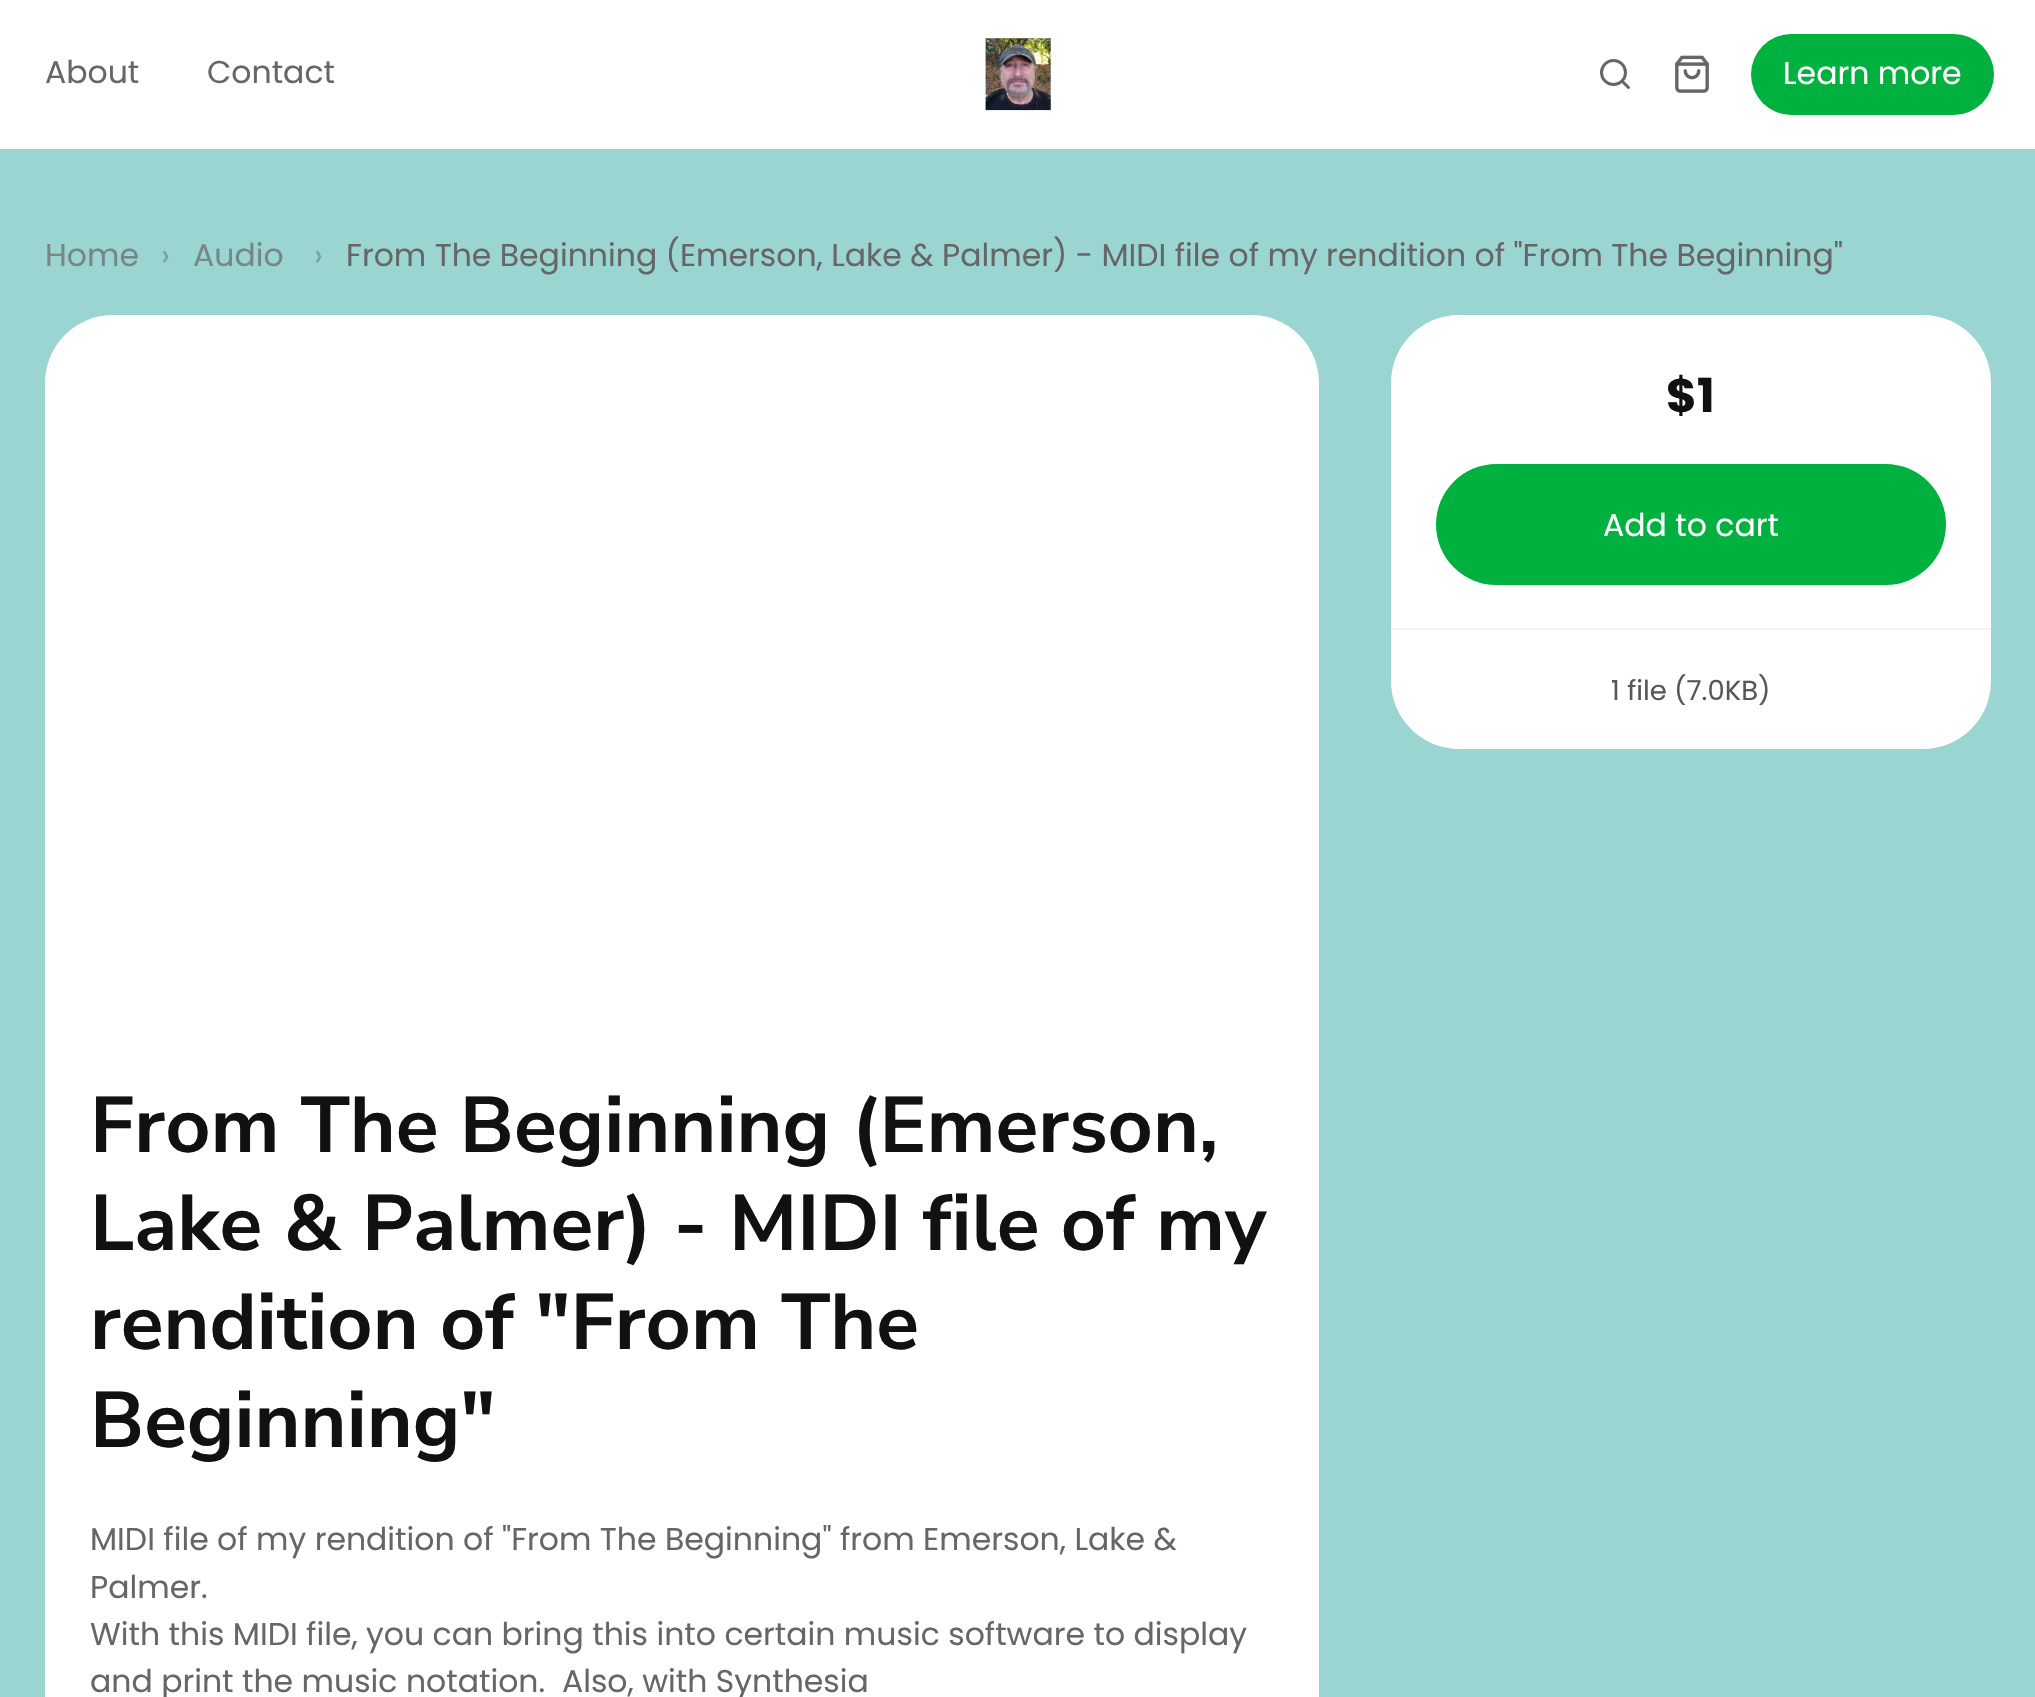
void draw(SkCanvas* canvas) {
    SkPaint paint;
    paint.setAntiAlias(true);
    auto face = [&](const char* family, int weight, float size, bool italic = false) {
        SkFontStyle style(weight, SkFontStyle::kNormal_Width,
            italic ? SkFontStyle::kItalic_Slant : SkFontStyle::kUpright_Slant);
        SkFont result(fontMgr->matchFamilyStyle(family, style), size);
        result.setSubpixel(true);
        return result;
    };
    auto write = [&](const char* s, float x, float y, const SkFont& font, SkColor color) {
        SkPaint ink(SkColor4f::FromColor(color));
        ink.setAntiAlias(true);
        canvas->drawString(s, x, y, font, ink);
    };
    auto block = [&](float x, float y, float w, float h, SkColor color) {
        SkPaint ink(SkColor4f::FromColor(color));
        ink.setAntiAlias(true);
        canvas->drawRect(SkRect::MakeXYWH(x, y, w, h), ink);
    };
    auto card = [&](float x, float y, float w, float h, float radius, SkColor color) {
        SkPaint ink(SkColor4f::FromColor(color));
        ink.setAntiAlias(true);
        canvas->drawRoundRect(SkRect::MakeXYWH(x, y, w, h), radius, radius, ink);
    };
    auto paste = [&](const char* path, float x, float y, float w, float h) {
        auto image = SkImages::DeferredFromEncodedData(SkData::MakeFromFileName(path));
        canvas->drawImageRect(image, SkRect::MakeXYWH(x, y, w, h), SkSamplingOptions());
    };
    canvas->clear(SkColorSetRGB(154, 213, 209));
    block(0, 0, 2035, 149, SK_ColorWHITE);
    auto kFont1 = face("Poppins", 400, 31.5f);
    write("About", 45, 83, kFont1, SkColorSetRGB(102, 102, 102));
    write("Contact", 207, 83, kFont1, SkColorSetRGB(102, 102, 102));
    paste("pic1.png", 985, 38, 66, 73);
    paint.setStyle(SkPaint::kStroke_Style);
    paint.setStrokeWidth(3);
    paint.setColor(SkColorSetRGB(102, 102, 102));
    canvas->drawCircle(1613.5f, 72.5f, 12, paint);
    paint.setStrokeCap(SkPaint::kRound_Cap);
    paint.setStrokeJoin(SkPaint::kRound_Join);
    canvas->drawPath(SkPathBuilder().moveTo(1628.5f, 87.5f).lineTo(1622, 81).detach(), paint);
    paste("pic2.png", 1675, 55, 34, 38);
    card(1751, 34, 243, 81, 40.5f, SkColorSetRGB(0, 177, 64));
    write("Learn more", 1783, 84, kFont1, SK_ColorWHITE);
    write("Home", 45, 266, kFont1, SkColorSetRGB(118, 135, 134));
    write("›", 161, 266, kFont1, SkColorSetRGB(129, 159, 157));
    write("Audio", 193, 266, kFont1, SkColorSetRGB(118, 135, 134));
    write("›", 314, 266, kFont1, SkColorSetRGB(129, 159, 157));
    write("From The Beginning (Emerson, Lake & Palmer) - MIDI file of my rendition of \"From The Beginning\"", 346, 266, kFont1, SkColorSetRGB(102, 102, 102));
    paint.setStyle(SkPaint::kFill_Style);
    paint.setColor(SK_ColorWHITE);
    canvas->drawPath(SkPathBuilder().moveTo(1459, 315).lineTo(1923, 315).cubicTo(1960.5f, 315, 1991, 345.5f, 1991, 383).lineTo(1991, 630).lineTo(1391, 630).lineTo(1391, 383).cubicTo(1391, 345.5f, 1421.5f, 315, 1459, 315).close().detach(), paint);
    auto kFont2 = face("Poppins", 700, 47);
    write("$1", 1666, 412, kFont2, SkColorSetRGB(17, 17, 17));
    card(1436, 464, 510, 121, 60.5f, SkColorSetRGB(0, 177, 64));
    write("Add to cart", 1603, 536, kFont1, SK_ColorWHITE);
    block(1391, 628, 600, 2, SkColorSetRGB(243, 243, 243));
    canvas->drawPath(SkPathBuilder().moveTo(1391, 630).lineTo(1991, 630).lineTo(1991, 681).cubicTo(1991, 718.5f, 1960.5f, 749, 1923, 749).lineTo(1459, 749).cubicTo(1421.5f, 749, 1391, 718.5f, 1391, 681).close().detach(), paint);
    auto kFont3 = face("Poppins", 400, 27.5f);
    write("1 file (7.0KB)", 1611, 700, kFont3, SkColorSetRGB(87, 87, 87));
    card(45, 315, 1274, 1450, 68, SK_ColorWHITE);
    auto kFont4 = face("Nunito Sans", 700, 78.75f);
    write("From The Beginning (Emerson,", 90, 1152, kFont4, SkColorSetRGB(17, 17, 17));
    write("Lake & Palmer) - MIDI file of my", 90, 1250, kFont4, SkColorSetRGB(17, 17, 17));
    write("rendition of \"From The", 90, 1349, kFont4, SkColorSetRGB(17, 17, 17));
    write("Beginning\"", 90, 1447, kFont4, SkColorSetRGB(17, 17, 17));
    write("MIDI file of my rendition of \"From The Beginning\" from Emerson, Lake &", 90, 1550, kFont1, SkColorSetRGB(102, 102, 102));
    write("Palmer.", 90, 1598, kFont1, SkColorSetRGB(102, 102, 102));
    write("With this MIDI file, you can bring this into certain music software to display", 90, 1645, kFont1, SkColorSetRGB(102, 102, 102));
    write("and print the music notation.  Also, with Synthesia", 90, 1692, kFont1, SkColorSetRGB(102, 102, 102));
}
